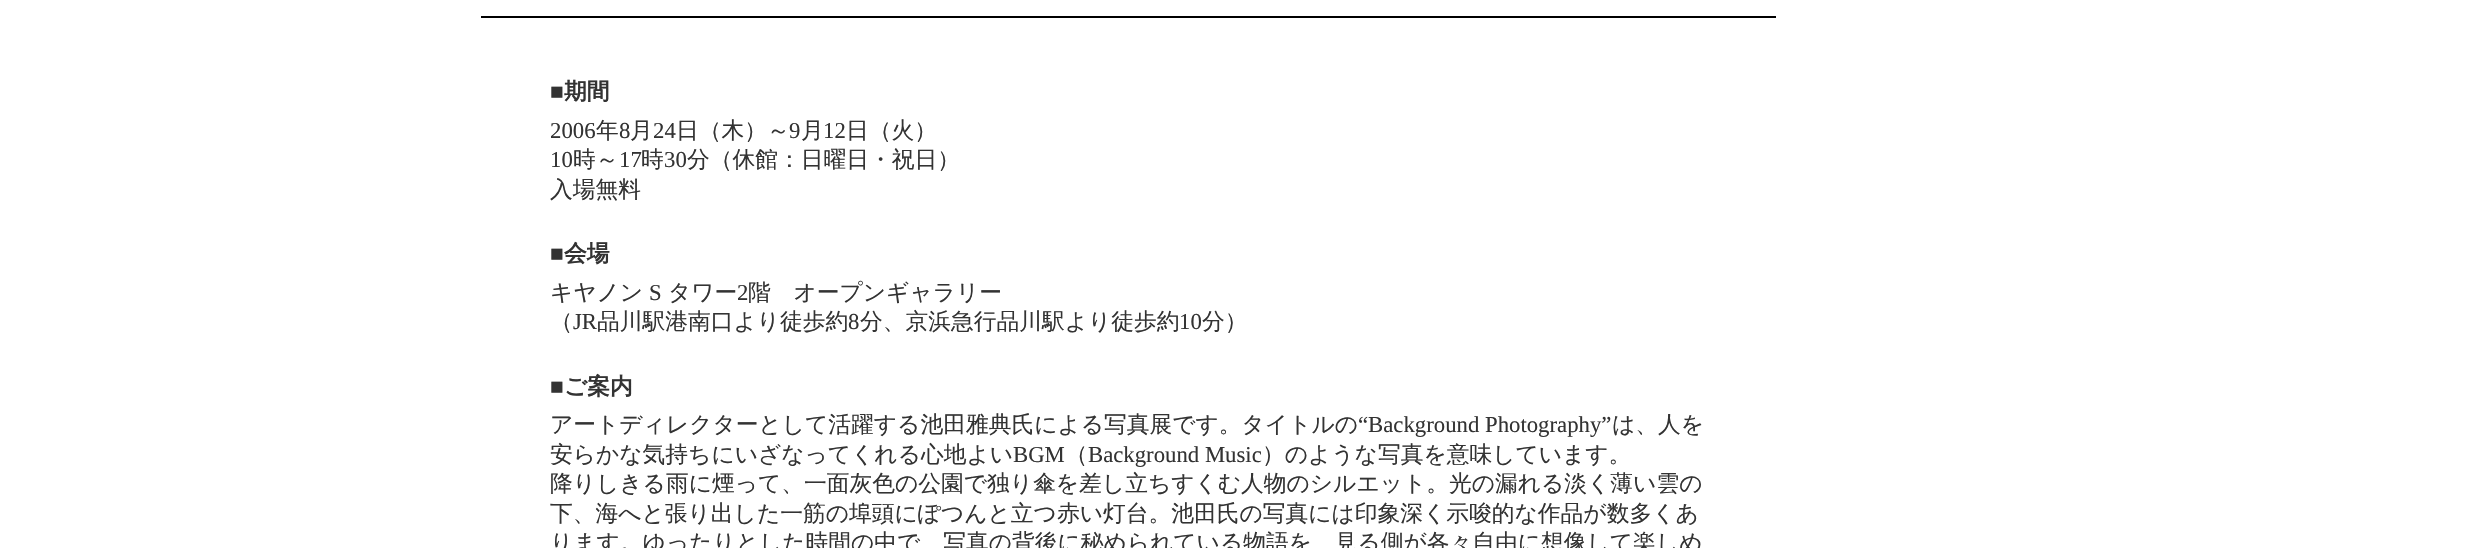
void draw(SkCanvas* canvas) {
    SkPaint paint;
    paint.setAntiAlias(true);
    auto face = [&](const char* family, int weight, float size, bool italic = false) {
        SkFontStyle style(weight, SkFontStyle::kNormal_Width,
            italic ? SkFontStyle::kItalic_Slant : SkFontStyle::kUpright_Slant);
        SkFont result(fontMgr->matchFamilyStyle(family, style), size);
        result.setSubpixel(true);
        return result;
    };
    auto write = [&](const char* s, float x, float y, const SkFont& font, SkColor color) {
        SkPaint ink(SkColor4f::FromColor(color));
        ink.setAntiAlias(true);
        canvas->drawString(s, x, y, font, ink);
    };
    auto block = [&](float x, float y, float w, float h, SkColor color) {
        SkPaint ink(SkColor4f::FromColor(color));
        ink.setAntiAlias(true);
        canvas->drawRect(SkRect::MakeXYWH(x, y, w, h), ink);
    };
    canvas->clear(SK_ColorWHITE);
    block(481, 16, 1295, 2, SK_ColorBLACK);
    auto kFont1 = face("Liberation Serif", 700, 22.75f);
    write("■", 550, 99, kFont1, SkColorSetRGB(51, 51, 51));
    auto kFont2 = face("WenQuanYi Zen Hei", 700, 22.75f);
    write("期間", 564, 99, kFont2, SkColorSetRGB(51, 51, 51));
    auto kFont3 = face("Liberation Serif", 400, 22.75f);
    write("2006", 550, 138, kFont3, SkColorSetRGB(51, 51, 51));
    auto kFont4 = face("WenQuanYi Zen Hei", 500, 22.75f);
    write("年", 596, 138, kFont4, SkColorSetRGB(51, 51, 51));
    write("8", 619, 138, kFont3, SkColorSetRGB(51, 51, 51));
    write("月", 630, 138, kFont4, SkColorSetRGB(51, 51, 51));
    write("24", 653, 138, kFont3, SkColorSetRGB(51, 51, 51));
    write("日（木）～", 676, 138, kFont4, SkColorSetRGB(51, 51, 51));
    write("9", 789, 138, kFont3, SkColorSetRGB(51, 51, 51));
    write("月", 801, 138, kFont4, SkColorSetRGB(51, 51, 51));
    write("12", 823, 138, kFont3, SkColorSetRGB(51, 51, 51));
    write("日（火）", 846, 138, kFont4, SkColorSetRGB(51, 51, 51));
    write("10", 550, 167, kFont3, SkColorSetRGB(51, 51, 51));
    write("時～", 573, 167, kFont4, SkColorSetRGB(51, 51, 51));
    write("17", 619, 167, kFont3, SkColorSetRGB(51, 51, 51));
    write("時", 641, 167, kFont4, SkColorSetRGB(51, 51, 51));
    write("30", 664, 167, kFont3, SkColorSetRGB(51, 51, 51));
    write("分（休館：日曜日・祝日）", 687, 167, kFont4, SkColorSetRGB(51, 51, 51));
    write("入場無料", 550, 197, kFont4, SkColorSetRGB(51, 51, 51));
    write("■", 550, 261, kFont1, SkColorSetRGB(51, 51, 51));
    write("会場", 564, 261, kFont2, SkColorSetRGB(51, 51, 51));
    write("キヤノン", 550, 300, kFont4, SkColorSetRGB(51, 51, 51));
    write("S", 649, 300, kFont3, SkColorSetRGB(51, 51, 51));
    write("タワー", 668, 300, kFont4, SkColorSetRGB(51, 51, 51));
    write("2", 737, 300, kFont3, SkColorSetRGB(51, 51, 51));
    write("階　オープンギャラリー", 748, 300, kFont4, SkColorSetRGB(51, 51, 51));
    write("（", 550, 329, kFont4, SkColorSetRGB(51, 51, 51));
    write("JR", 573, 329, kFont3, SkColorSetRGB(51, 51, 51));
    write("品川駅港南口より徒歩約", 597, 329, kFont4, SkColorSetRGB(51, 51, 51));
    write("8", 848, 329, kFont3, SkColorSetRGB(51, 51, 51));
    write("分、京浜急行品川駅より徒歩約", 860, 329, kFont4, SkColorSetRGB(51, 51, 51));
    write("10", 1179, 329, kFont3, SkColorSetRGB(51, 51, 51));
    write("分）", 1202, 329, kFont4, SkColorSetRGB(51, 51, 51));
    write("■", 550, 394, kFont1, SkColorSetRGB(51, 51, 51));
    write("ご案内", 564, 394, kFont2, SkColorSetRGB(51, 51, 51));
    write("アートディレクターとして活躍する池田雅典氏による写真展です。タイトルの", 550, 432, kFont4, SkColorSetRGB(51, 51, 51));
    write("“Background Photography”", 1358, 432, kFont3, SkColorSetRGB(51, 51, 51));
    write("は、人を", 1612, 432, kFont4, SkColorSetRGB(51, 51, 51));
    write("安らかな気持ちにいざなってくれる心地よい", 550, 462, kFont4, SkColorSetRGB(51, 51, 51));
    write("BGM", 1013, 462, kFont3, SkColorSetRGB(51, 51, 51));
    write("（", 1065, 462, kFont4, SkColorSetRGB(51, 51, 51));
    write("Background Music", 1088, 462, kFont3, SkColorSetRGB(51, 51, 51));
    write("）のような写真を意味しています。", 1262, 462, kFont4, SkColorSetRGB(51, 51, 51));
    write("降りしきる雨に煙って、一面灰色の公園で独り傘を差し立ちすくむ人物のシルエット。光の漏れる淡く薄い雲の", 550, 491, kFont4, SkColorSetRGB(51, 51, 51));
    write("下、海へと張り出した一筋の埠頭にぽつんと立つ赤い灯台。池田氏の写真には印象深く示唆的な作品が数多くあ", 550, 521, kFont4, SkColorSetRGB(51, 51, 51));
    write("ります。ゆったりとした時間の中で、写真の背後に秘められている物語を、見る側が各々自由に想像して楽しめ", 550, 550, kFont4, SkColorSetRGB(51, 51, 51));
}
